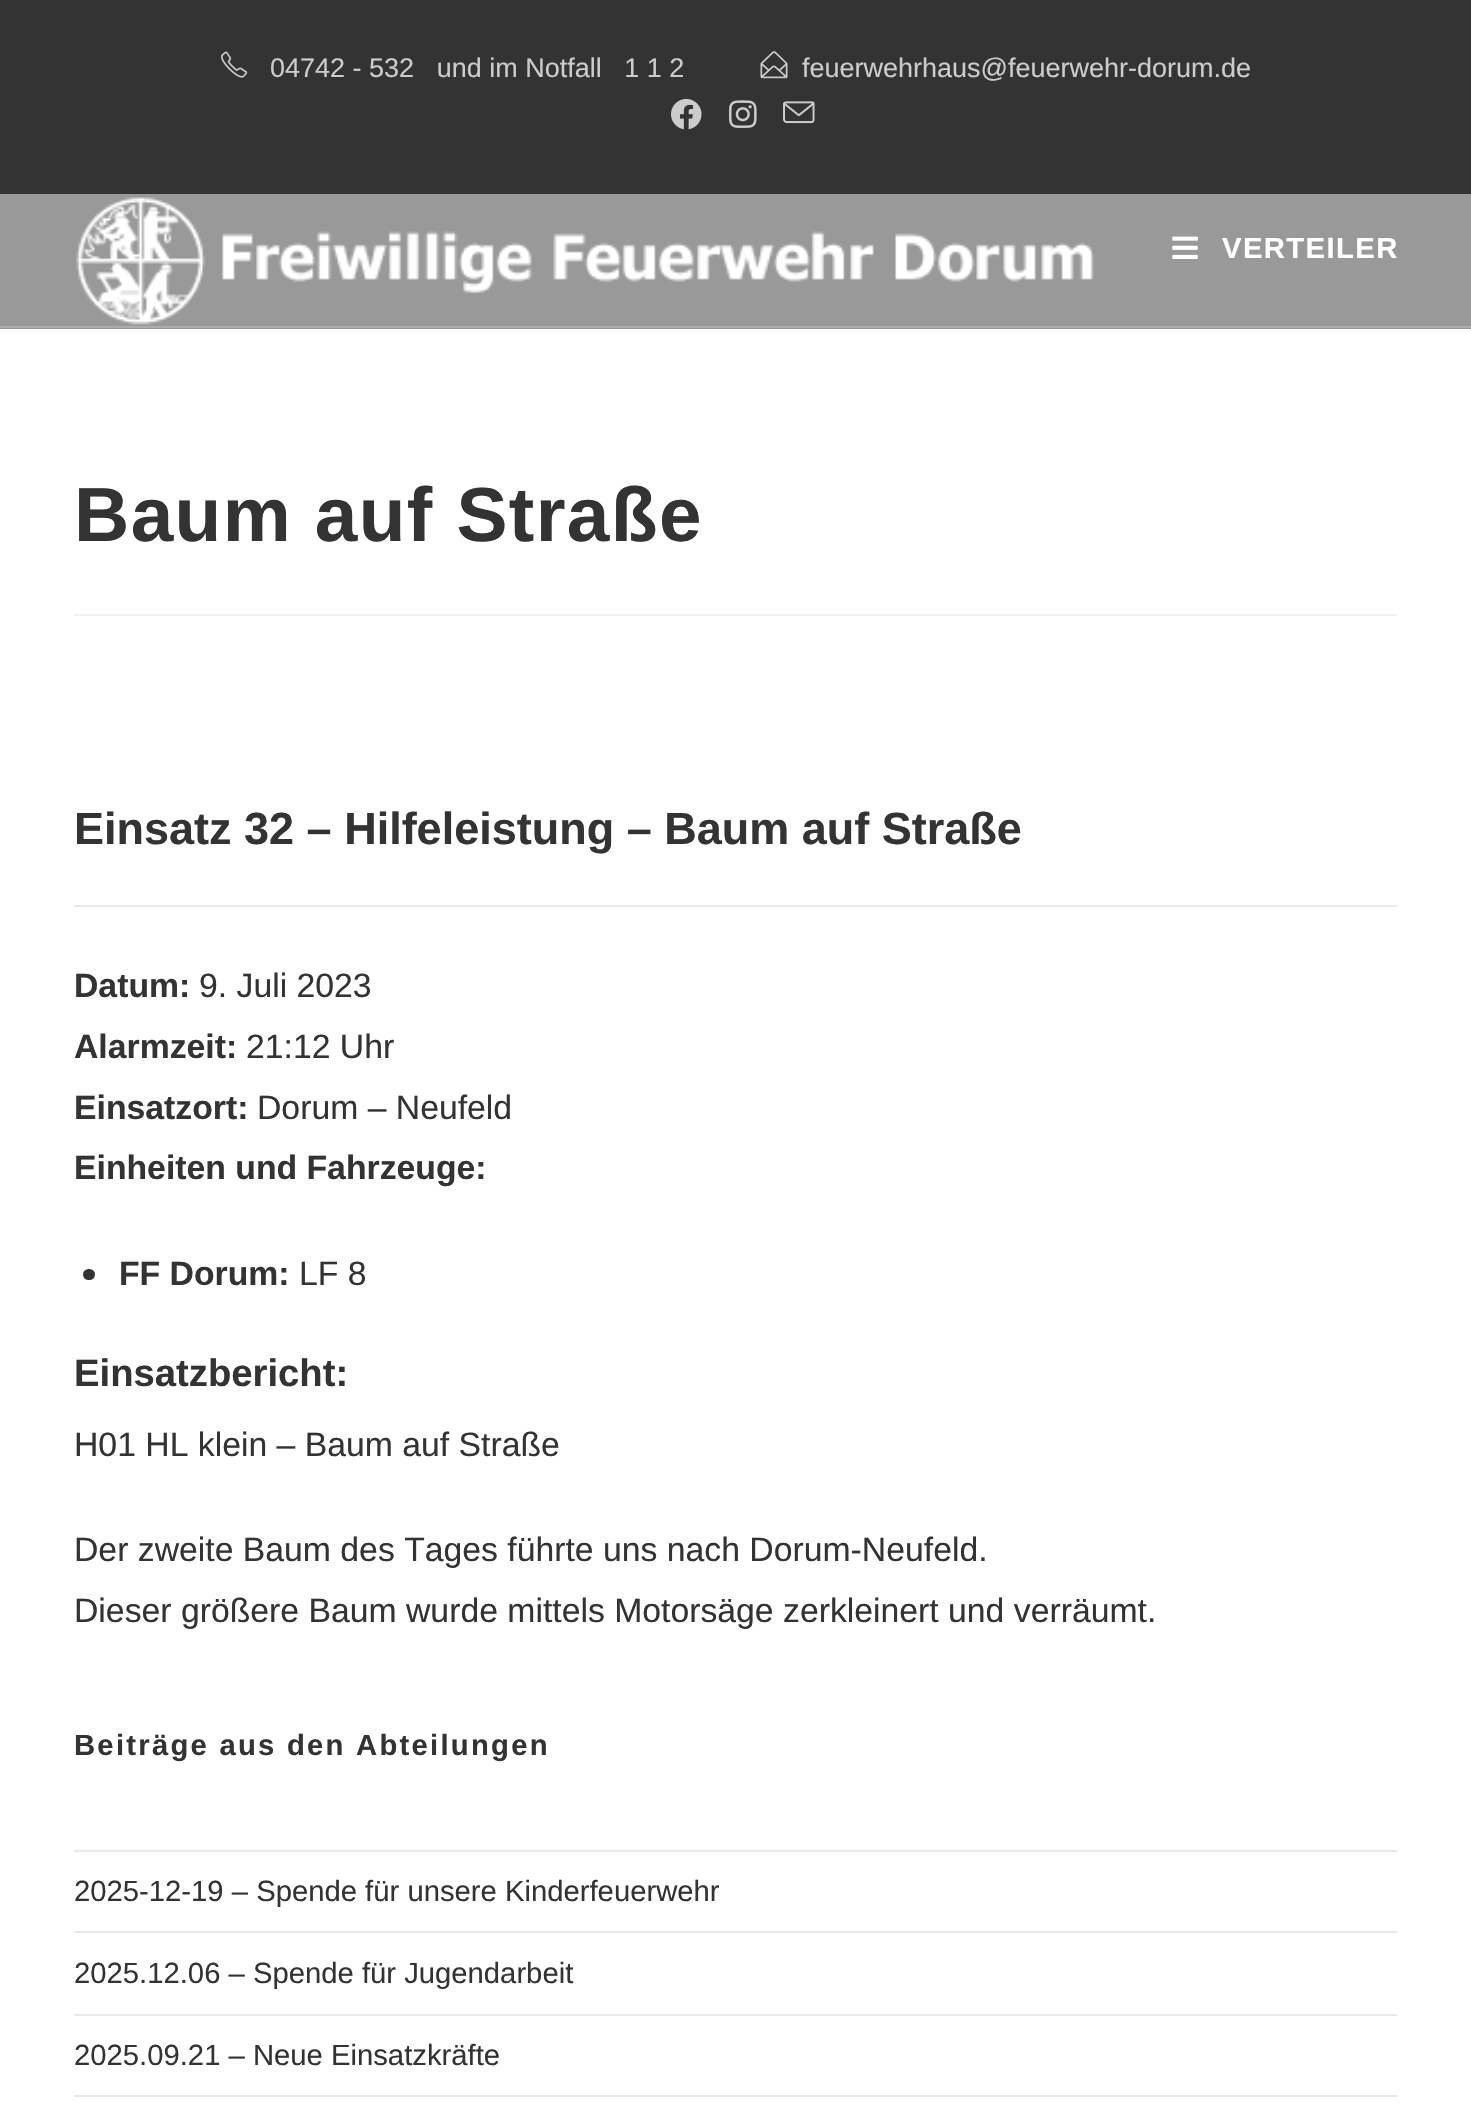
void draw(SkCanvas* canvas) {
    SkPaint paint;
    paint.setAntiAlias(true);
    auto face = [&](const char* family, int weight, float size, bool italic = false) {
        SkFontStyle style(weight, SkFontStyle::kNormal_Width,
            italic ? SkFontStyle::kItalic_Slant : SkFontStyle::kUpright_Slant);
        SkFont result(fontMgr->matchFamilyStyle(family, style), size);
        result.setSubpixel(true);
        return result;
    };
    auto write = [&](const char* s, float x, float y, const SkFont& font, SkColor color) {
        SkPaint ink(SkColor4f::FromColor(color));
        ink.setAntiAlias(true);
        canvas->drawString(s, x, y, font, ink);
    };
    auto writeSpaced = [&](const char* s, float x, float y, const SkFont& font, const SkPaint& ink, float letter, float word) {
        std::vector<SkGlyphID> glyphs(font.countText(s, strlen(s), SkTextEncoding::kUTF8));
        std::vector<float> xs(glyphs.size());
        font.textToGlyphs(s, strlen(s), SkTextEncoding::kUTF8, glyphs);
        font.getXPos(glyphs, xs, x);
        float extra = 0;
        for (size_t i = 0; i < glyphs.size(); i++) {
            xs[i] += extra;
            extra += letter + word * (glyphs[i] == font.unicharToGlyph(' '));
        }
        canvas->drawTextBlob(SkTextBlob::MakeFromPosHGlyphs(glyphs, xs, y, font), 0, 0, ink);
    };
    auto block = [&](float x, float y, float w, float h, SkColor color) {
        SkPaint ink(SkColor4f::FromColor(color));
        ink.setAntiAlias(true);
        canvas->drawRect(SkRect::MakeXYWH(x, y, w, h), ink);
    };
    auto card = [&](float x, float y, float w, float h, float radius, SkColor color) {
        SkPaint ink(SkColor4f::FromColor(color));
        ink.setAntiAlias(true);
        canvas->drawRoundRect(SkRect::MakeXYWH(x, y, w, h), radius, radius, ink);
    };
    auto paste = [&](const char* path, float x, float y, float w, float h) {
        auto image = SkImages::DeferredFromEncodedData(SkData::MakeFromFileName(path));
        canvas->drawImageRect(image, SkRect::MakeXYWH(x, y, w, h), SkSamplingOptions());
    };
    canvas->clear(SK_ColorWHITE);
    block(0, 0, 1471, 194, SkColorSetRGB(51, 51, 51));
    paste("pic1.png", 220, 51, 28, 27);
    auto kFont1 = face("Liberation Sans", 400, 27);
    write("04742 - 532   und im Notfall   1 1 2", 270, 77, kFont1, SkColorSetRGB(204, 204, 204));
    paste("pic2.png", 760, 51, 28, 28);
    write("feuerwehrhaus@feuerwehr-dorum.de", 802, 77, kFont1, SkColorSetRGB(204, 204, 204));
    paste("pic3.png", 671, 98, 31, 32);
    paste("pic4.png", 729, 100, 28, 28);
    paste("pic5.png", 783, 101, 32, 23);
    block(0, 194, 1471, 135, SkColorSetRGB(153, 153, 153));
    block(0, 326, 1471, 2, SkColorSetRGB(173, 173, 173));
    paste("pic6.png", 76, 197, 1018, 128);
    paste("pic7.png", 1172, 236, 26, 23);
    auto kFont2 = face("Liberation Sans", 700, 29.25f);
    paint.setColor(SK_ColorWHITE);
    writeSpaced("VERTEILER", 1222, 258, kFont2, paint, 1.4f, 0);
    block(74, 614, 1323, 2, SkColorSetRGB(241, 241, 241));
    auto kFont3 = face("Liberation Sans", 700, 76.5f);
    paint.setColor(SkColorSetRGB(51, 51, 51));
    writeSpaced("Baum auf Straße", 74, 541, kFont3, paint, 1.4f, 0);
    auto kFont4 = face("Liberation Sans", 700, 45);
    write("Einsatz 32 – Hilfeleistung – Baum auf Straße", 74, 844, kFont4, SkColorSetRGB(51, 51, 51));
    block(74, 905, 1323, 2, SkColorSetRGB(233, 233, 233));
    auto kFont5 = face("Liberation Sans", 700, 33.75f);
    write("Datum:", 74, 997, kFont5, SkColorSetRGB(51, 51, 51));
    auto kFont6 = face("Liberation Sans", 400, 33.75f);
    write("9. Juli 2023", 199, 997, kFont6, SkColorSetRGB(51, 51, 51));
    write("Alarmzeit:", 74, 1058, kFont5, SkColorSetRGB(51, 51, 51));
    write("21:12 Uhr", 246, 1058, kFont6, SkColorSetRGB(51, 51, 51));
    write("Einsatzort:", 74, 1119, kFont5, SkColorSetRGB(51, 51, 51));
    write("Dorum – Neufeld", 257, 1119, kFont6, SkColorSetRGB(51, 51, 51));
    write("Einheiten und Fahrzeuge:", 74, 1179, kFont5, SkColorSetRGB(51, 51, 51));
    card(83, 1269, 12, 11, 5.5f, SkColorSetRGB(51, 51, 51));
    write("FF Dorum:", 119, 1285, kFont5, SkColorSetRGB(51, 51, 51));
    write("LF 8", 299, 1285, kFont6, SkColorSetRGB(51, 51, 51));
    auto kFont7 = face("Liberation Sans", 700, 38.25f);
    write("Einsatzbericht:", 74, 1386, kFont7, SkColorSetRGB(51, 51, 51));
    write("H01 HL klein – Baum auf Straße", 74, 1456, kFont6, SkColorSetRGB(51, 51, 51));
    write("Der zweite Baum des Tages führte uns nach Dorum-Neufeld.", 74, 1561, kFont6, SkColorSetRGB(51, 51, 51));
    write("Dieser größere Baum wurde mittels Motorsäge zerkleinert und verräumt.", 74, 1622, kFont6, SkColorSetRGB(51, 51, 51));
    writeSpaced("Beiträge aus den Abteilungen", 74, 1755, kFont2, paint, 2.25f, 0);
    block(74, 1850, 1323, 2, SkColorSetRGB(233, 233, 233));
    block(74, 1931, 1323, 2, SkColorSetRGB(233, 233, 233));
    auto kFont8 = face("Liberation Sans", 400, 29.25f);
    write("2025-12-19 – Spende für unsere Kinderfeuerwehr", 74, 1901, kFont8, SkColorSetRGB(51, 51, 51));
    block(74, 2014, 1323, 2, SkColorSetRGB(233, 233, 233));
    write("2025.12.06 – Spende für Jugendarbeit", 74, 1983, kFont8, SkColorSetRGB(51, 51, 51));
    block(74, 2095, 1323, 2, SkColorSetRGB(233, 233, 233));
    write("2025.09.21 – Neue Einsatzkräfte", 74, 2065, kFont8, SkColorSetRGB(51, 51, 51));
}
